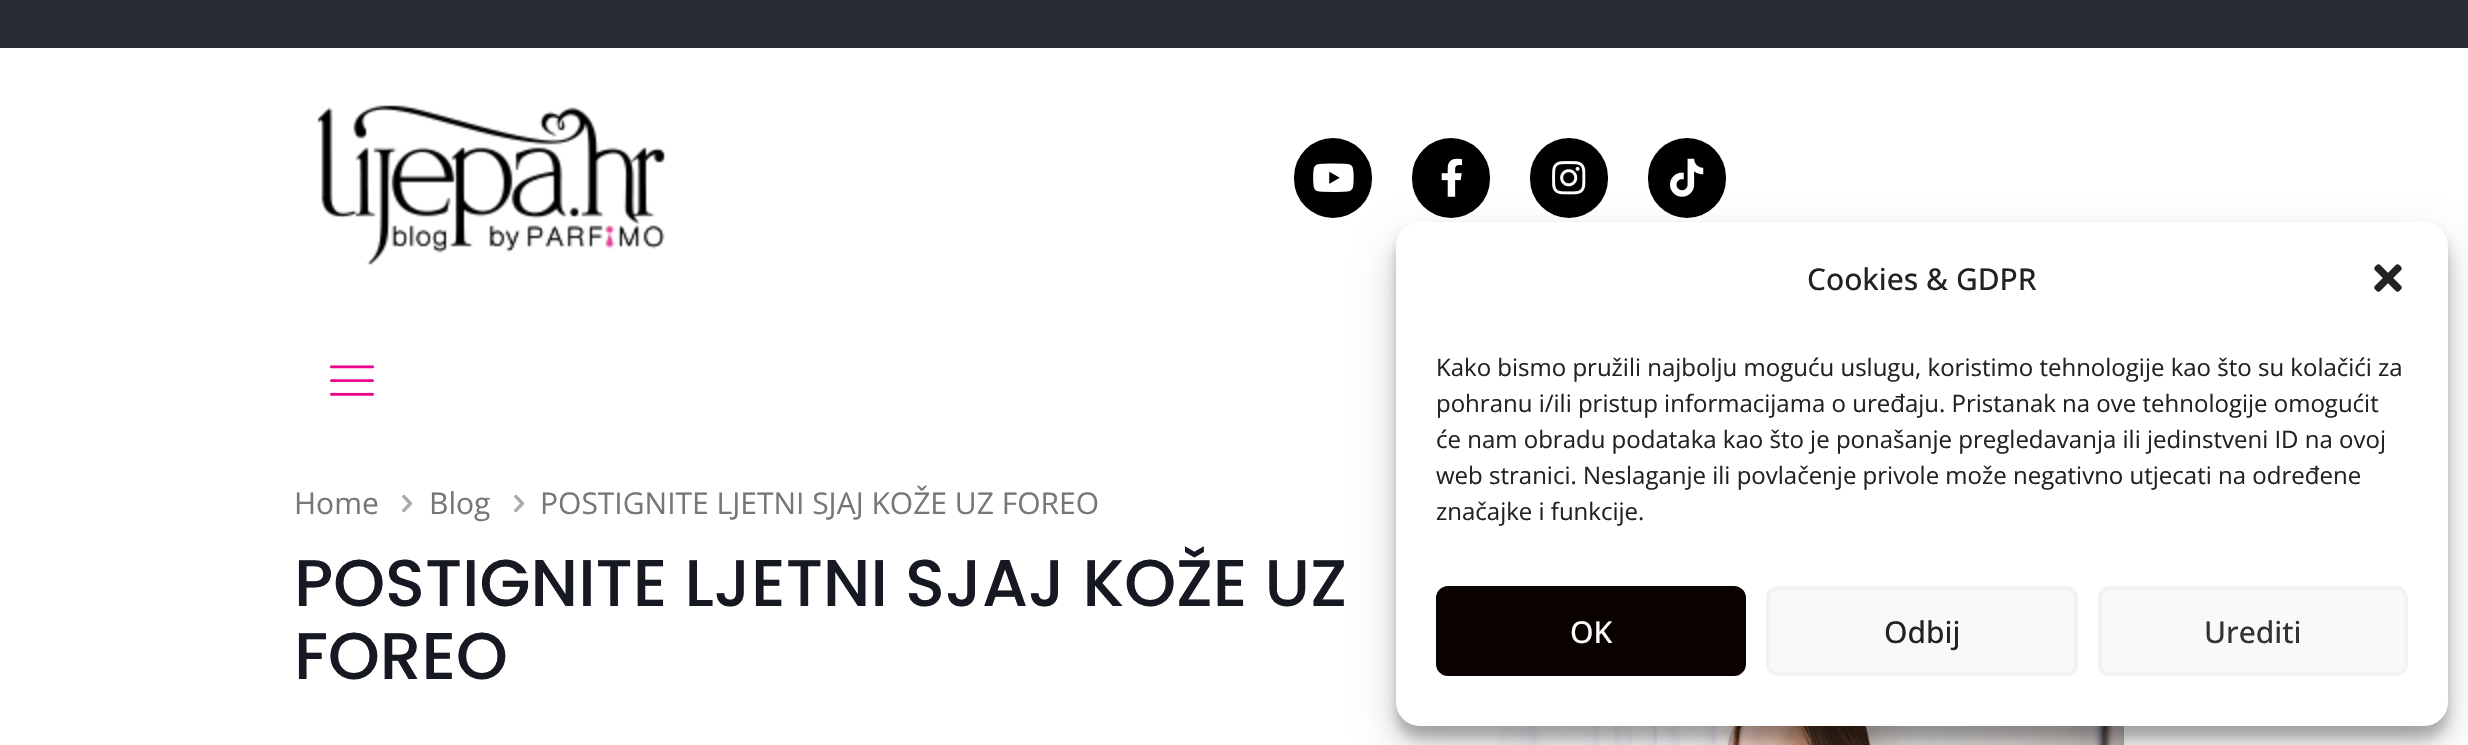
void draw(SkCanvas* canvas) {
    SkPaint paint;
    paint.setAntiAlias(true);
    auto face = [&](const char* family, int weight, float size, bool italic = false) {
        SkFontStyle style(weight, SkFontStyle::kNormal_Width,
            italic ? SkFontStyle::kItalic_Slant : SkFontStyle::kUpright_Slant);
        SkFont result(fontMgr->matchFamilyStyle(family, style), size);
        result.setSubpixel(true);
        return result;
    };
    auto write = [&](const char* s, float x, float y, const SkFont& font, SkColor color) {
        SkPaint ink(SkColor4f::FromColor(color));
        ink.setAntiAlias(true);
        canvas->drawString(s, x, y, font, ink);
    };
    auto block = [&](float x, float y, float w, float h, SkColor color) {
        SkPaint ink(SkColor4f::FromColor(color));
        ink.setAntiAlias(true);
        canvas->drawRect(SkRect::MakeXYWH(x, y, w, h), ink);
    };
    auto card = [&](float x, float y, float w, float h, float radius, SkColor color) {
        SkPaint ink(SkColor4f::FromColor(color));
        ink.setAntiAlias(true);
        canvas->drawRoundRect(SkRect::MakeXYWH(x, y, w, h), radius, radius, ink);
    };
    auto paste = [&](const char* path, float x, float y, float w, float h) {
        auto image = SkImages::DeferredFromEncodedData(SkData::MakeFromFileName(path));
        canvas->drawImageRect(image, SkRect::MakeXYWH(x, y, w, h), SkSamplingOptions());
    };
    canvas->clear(SK_ColorWHITE);
    block(0, 0, 2468, 48, SkColorSetRGB(41, 43, 51));
    paste("pic1.png", 318, 105, 347, 160);
    paste("pic2.png", 330, 365, 44, 31);
    card(1294, 138, 78, 80, 39, SK_ColorBLACK);
    paste("pic3.png", 1313, 163, 41, 29);
    card(1412, 138, 78, 80, 39, SK_ColorBLACK);
    paste("pic4.png", 1441, 158, 22, 39);
    card(1530, 138, 78, 80, 39, SK_ColorBLACK);
    paste("pic5.png", 1552, 161, 34, 34);
    card(1648, 138, 78, 80, 39, SK_ColorBLACK);
    paste("pic6.png", 1670, 158, 34, 39);
    auto kFont1 = face("Open Sans", 400, 30);
    write("Home", 294, 514, kFont1, SkColorSetRGB(119, 119, 119));
    paste("pic7.png", 402, 494, 11, 19);
    write("Blog", 429, 514, kFont1, SkColorSetRGB(119, 119, 119));
    paste("pic7.png", 514, 494, 11, 19);
    write("POSTIGNITE LJETNI SJAJ KOŽE UZ FOREO", 540, 514, kFont1, SkColorSetRGB(119, 119, 119));
    auto kFont2 = face("Poppins", 500, 66);
    write("POSTIGNITE LJETNI SJAJ KOŽE UZ", 294, 606, kFont2, SkColorSetRGB(22, 25, 34));
    write("FOREO", 294, 679, kFont2, SkColorSetRGB(22, 25, 34));
    paste("pic8.png", 1498, 726, 626, 19);
    paint.setColor(SkColorSetARGB(59, 0, 0, 0));
    paint.setMaskFilter(SkMaskFilter::MakeBlur(kNormal_SkBlurStyle, 6));
    canvas->drawRoundRect(SkRect::MakeXYWH(1396, 234, 1052, 504), 24, 24, paint);
    paint.setMaskFilter(nullptr);
    paint.setColor(SkColorSetARGB(48, 0, 0, 0));
    paint.setMaskFilter(SkMaskFilter::MakeBlur(kNormal_SkBlurStyle, 20));
    canvas->drawRoundRect(SkRect::MakeXYWH(1396, 242, 1052, 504), 24, 24, paint);
    paint.setMaskFilter(nullptr);
    card(1396, 222, 1052, 504, 24, SK_ColorWHITE);
    auto kFont3 = face("Open Sans", 500, 30);
    write("Cookies & GDPR", 1807, 290, kFont3, SkColorSetRGB(34, 34, 34));
    paste("pic9.png", 2374, 264, 28, 28);
    auto kFont4 = face("Open Sans", 400, 24);
    write("Kako bismo pružili najbolju moguću uslugu, koristimo tehnologije kao što su kolačići za", 1436, 376, kFont4, SkColorSetRGB(34, 34, 34));
    write("pohranu i/ili pristup informacijama o uređaju. Pristanak na ove tehnologije omogućit", 1436, 412, kFont4, SkColorSetRGB(34, 34, 34));
    write("će nam obradu podataka kao što je ponašanje pregledavanja ili jedinstveni ID na ovoj", 1436, 448, kFont4, SkColorSetRGB(34, 34, 34));
    write("web stranici. Neslaganje ili povlačenje privole može negativno utjecati na određene", 1436, 484, kFont4, SkColorSetRGB(34, 34, 34));
    write("značajke i funkcije.", 1436, 520, kFont4, SkColorSetRGB(34, 34, 34));
    paint.setColor(SkColorSetRGB(10, 1, 1));
    canvas->drawRoundRect(SkRect::MakeXYWH(1437, 587, 308, 88), 11, 11, paint);
    paint.setStyle(SkPaint::kStroke_Style);
    paint.setStrokeWidth(2);
    canvas->drawRoundRect(SkRect::MakeXYWH(1437, 587, 308, 88), 11, 11, paint);
    write("OK", 1570, 643, kFont3, SK_ColorWHITE);
    card(1766, 586, 312, 90, 12, SkColorSetRGB(249, 249, 249));
    paint.setColor(SkColorSetRGB(242, 242, 242));
    canvas->drawRoundRect(SkRect::MakeXYWH(1769, 589, 306, 84), 9, 9, paint);
    canvas->drawRoundRect(SkRect::MakeXYWH(1767, 587, 310, 88), 11, 11, paint);
    write("Odbij", 1884, 643, kFont3, SkColorSetRGB(34, 34, 34));
    card(2098, 586, 310, 90, 12, SkColorSetRGB(249, 249, 249));
    canvas->drawRoundRect(SkRect::MakeXYWH(2101, 589, 304, 84), 9, 9, paint);
    canvas->drawRoundRect(SkRect::MakeXYWH(2099, 587, 308, 88), 11, 11, paint);
    write("Urediti", 2204, 643, kFont3, SkColorSetRGB(51, 51, 51));
}
